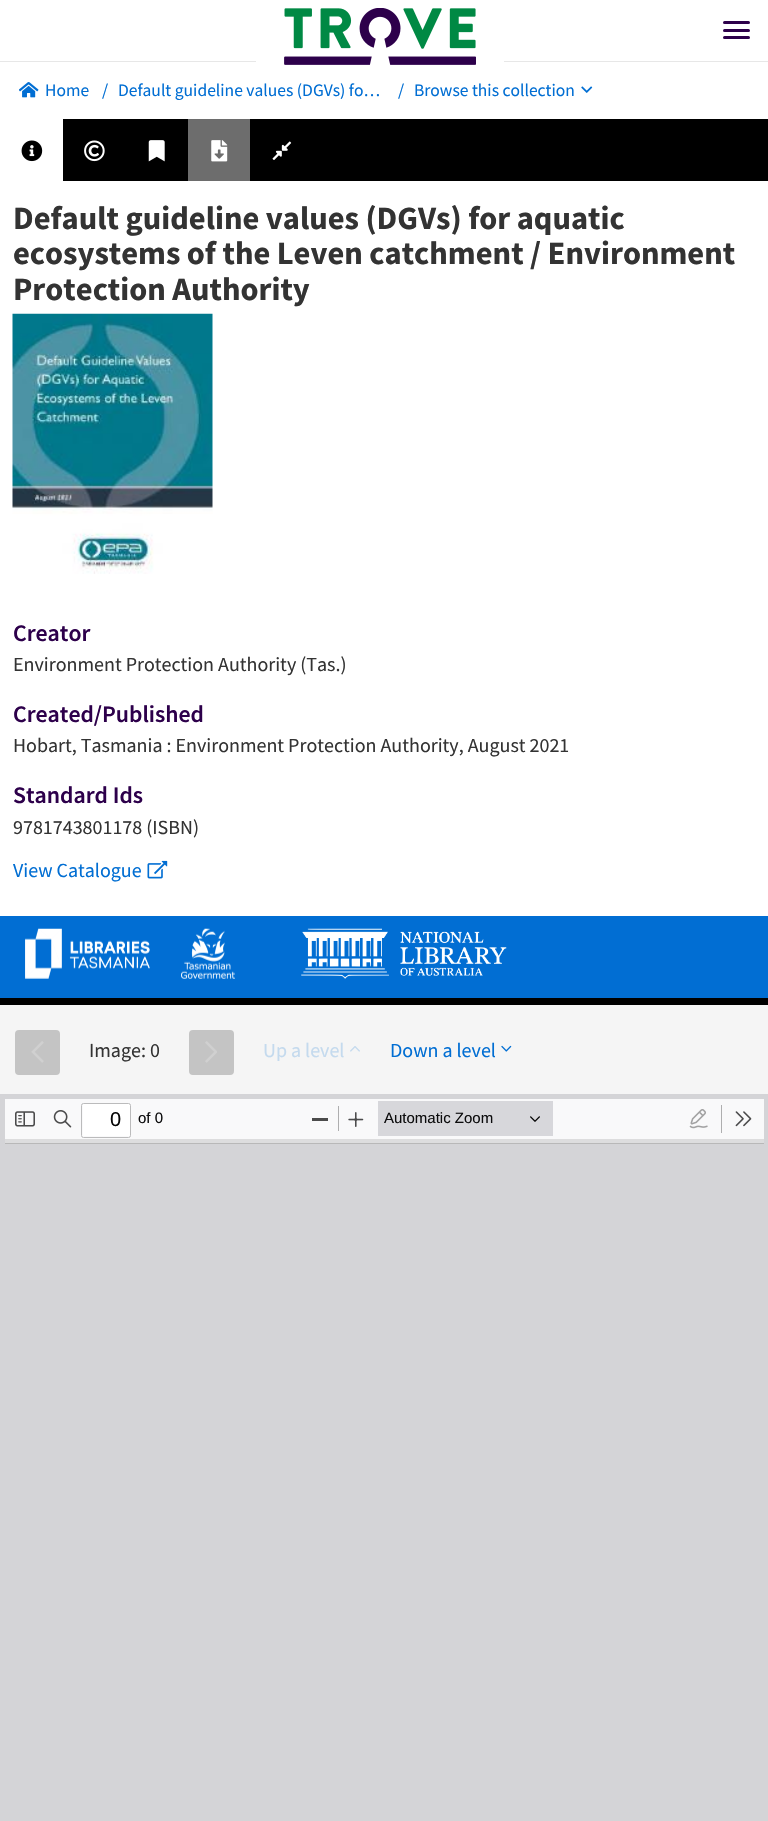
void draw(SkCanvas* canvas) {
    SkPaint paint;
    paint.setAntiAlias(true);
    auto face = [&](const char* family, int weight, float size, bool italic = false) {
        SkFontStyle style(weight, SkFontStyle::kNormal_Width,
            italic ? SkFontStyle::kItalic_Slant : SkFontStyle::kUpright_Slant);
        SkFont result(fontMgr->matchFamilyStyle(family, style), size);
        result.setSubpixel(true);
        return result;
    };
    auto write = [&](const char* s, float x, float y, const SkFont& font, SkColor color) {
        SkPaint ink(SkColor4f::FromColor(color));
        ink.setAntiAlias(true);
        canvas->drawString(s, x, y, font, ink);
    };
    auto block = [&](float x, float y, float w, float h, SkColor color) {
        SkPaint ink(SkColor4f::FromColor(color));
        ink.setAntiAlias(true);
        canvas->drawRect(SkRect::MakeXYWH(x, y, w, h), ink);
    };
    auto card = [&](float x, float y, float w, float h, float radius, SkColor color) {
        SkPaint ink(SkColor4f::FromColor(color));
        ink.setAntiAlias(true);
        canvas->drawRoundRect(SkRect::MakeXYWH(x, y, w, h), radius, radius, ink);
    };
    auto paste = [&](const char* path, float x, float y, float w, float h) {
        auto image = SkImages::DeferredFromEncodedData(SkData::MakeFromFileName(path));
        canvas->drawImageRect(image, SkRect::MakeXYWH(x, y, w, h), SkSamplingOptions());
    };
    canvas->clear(SkColorSetRGB(212, 212, 215));
    block(0, 0, 768, 119, SK_ColorWHITE);
    block(0, 61, 768, 1, SkColorSetRGB(231, 231, 231));
    block(256, 61, 248, 1, SK_ColorWHITE);
    paste("pic1.png", 284, 8, 192, 57);
    card(723, 21, 27, 3, 1.5f, SkColorSetRGB(45, 0, 75));
    card(723, 29, 27, 3, 1.5f, SkColorSetRGB(45, 0, 75));
    card(723, 36, 27, 3, 1.5f, SkColorSetRGB(45, 0, 75));
    paste("pic2.png", 19, 82, 20, 16);
    auto kFont1 = face("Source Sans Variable", 400, 17.5f);
    write("Home", 45, 96, kFont1, SkColorSetRGB(1, 110, 211));
    write("/", 102, 96, kFont1, SkColorSetRGB(1, 110, 211));
    write("Default guideline values (DGVs) fo…", 118, 96, kFont1, SkColorSetRGB(1, 110, 211));
    write("/", 398, 96, kFont1, SkColorSetRGB(1, 110, 211));
    write("Browse this collection", 414, 96, kFont1, SkColorSetRGB(1, 110, 211));
    paste("pic3.png", 581, 86, 12, 7);
    block(0, 181, 768, 735, SK_ColorWHITE);
    block(63, 119, 705, 62, SK_ColorBLACK);
    block(0, 119, 63, 62, SK_ColorWHITE);
    paste("pic4.png", 21, 140, 22, 22);
    paste("pic5.png", 84, 140, 21, 22);
    paste("pic6.png", 148, 140, 17, 22);
    block(188, 119, 62, 62, SkColorSetRGB(109, 109, 109));
    paste("pic7.png", 211, 140, 17, 22);
    paste("pic8.png", 272, 141, 20, 19);
    auto kFont2 = face("Source Sans Variable", 700, 32.5f);
    write("Default guideline values (DGVs) for aquatic", 13, 229, kFont2, SkColorSetRGB(51, 51, 51));
    write("ecosystems of the Leven catchment / Environment", 13, 264, kFont2, SkColorSetRGB(51, 51, 51));
    write("Protection Authority", 13, 300, kFont2, SkColorSetRGB(51, 51, 51));
    paste("pic9.png", 12, 313, 201, 261);
    auto kFont3 = face("Source Sans Variable", 600, 23.75f);
    write("Creator", 13, 641, kFont3, SkColorSetRGB(45, 0, 75));
    auto kFont4 = face("Source Sans Variable", 400, 20);
    write("Environment Protection Authority (Tas.)", 13, 671, kFont4, SkColorSetRGB(51, 51, 51));
    write("Created/Published", 13, 722, kFont3, SkColorSetRGB(45, 0, 75));
    write("Hobart, Tasmania : Environment Protection Authority, August 2021", 13, 752, kFont4, SkColorSetRGB(51, 51, 51));
    write("Standard Ids", 13, 803, kFont3, SkColorSetRGB(45, 0, 75));
    write("9781743801178 (ISBN)", 13, 834, kFont4, SkColorSetRGB(51, 51, 51));
    write("View Catalogue", 13, 877, kFont4, SkColorSetRGB(1, 110, 211));
    paste("pic10.png", 147, 860, 21, 19);
    block(0, 916, 768, 82, SkColorSetRGB(1, 110, 211));
    paste("pic11.png", 25, 928, 210, 51);
    paste("pic12.png", 301, 928, 206, 51);
    block(0, 998, 768, 7, SK_ColorBLACK);
    block(0, 1005, 768, 89, SkColorSetRGB(245, 245, 245));
    paint.setColor(SkColorSetRGB(196, 196, 196));
    canvas->drawRoundRect(SkRect::MakeXYWH(16.5f, 1031.5f, 42, 42), 2.5f, 2.5f, paint);
    paint.setStyle(SkPaint::kStroke_Style);
    paint.setStrokeWidth(3);
    canvas->drawRoundRect(SkRect::MakeXYWH(16.5f, 1031.5f, 42, 42), 2.5f, 2.5f, paint);
    paste("pic13.png", 31, 1041, 13, 22);
    write("Image: 0", 89, 1057, kFont4, SkColorSetRGB(51, 51, 51));
    paint.setStyle(SkPaint::kFill_Style);
    canvas->drawRoundRect(SkRect::MakeXYWH(190.5f, 1031.5f, 42, 42), 2.5f, 2.5f, paint);
    paint.setStyle(SkPaint::kStroke_Style);
    canvas->drawRoundRect(SkRect::MakeXYWH(190.5f, 1031.5f, 42, 42), 2.5f, 2.5f, paint);
    paste("pic14.png", 205, 1041, 12, 22);
    write("Up a level", 263, 1057, kFont4, SkColorSetRGB(196, 218, 238));
    paste("pic15.png", 350, 1046, 10, 6);
    write("Down a level", 390, 1057, kFont4, SkColorSetRGB(1, 110, 211));
    paste("pic16.png", 501, 1045, 11, 7);
    block(5, 1099, 759, 40, SkColorSetRGB(249, 249, 250));
    paste("pic17.png", 15, 1111, 20, 16);
    paste("pic18.png", 53, 1110, 19, 18);
    card(83, 1104, 47, 32, 1, SK_ColorWHITE);
    paint.setStrokeWidth(1);
    paint.setColor(SkColorSetRGB(187, 187, 188));
    canvas->drawRoundRect(SkRect::MakeXYWH(81.5f, 1103.5f, 49, 34), 2, 2, paint);
    auto kFont5 = face("Liberation Sans", 400, 20);
    write("0", 110, 1126, kFont5, SkColorSetRGB(6, 6, 6));
    auto kFont6 = face("Liberation Sans", 400, 15);
    write("of 0", 138, 1123, kFont6, SkColorSetRGB(12, 12, 13));
    block(312, 1118, 16, 3, SkColorSetRGB(75, 75, 75));
    block(338, 1106, 1, 25, SkColorSetRGB(174, 174, 175));
    paste("pic19.png", 348, 1112, 16, 15);
    block(378, 1101, 175, 35, SkColorSetRGB(215, 215, 219));
    write("Automatic Zoom", 384, 1123, kFont6, SkColorSetRGB(12, 12, 13));
    paste("pic20.png", 530, 1116, 10, 6);
    paste("pic21.png", 689, 1109, 19, 20);
    block(721, 1105, 1, 28, SkColorSetRGB(174, 174, 175));
    paste("pic22.png", 735, 1111, 17, 16);
    block(5, 1139, 759, 4, SkColorSetRGB(221, 221, 222));
    block(5, 1143, 759, 1, SkColorSetRGB(184, 184, 184));
}
